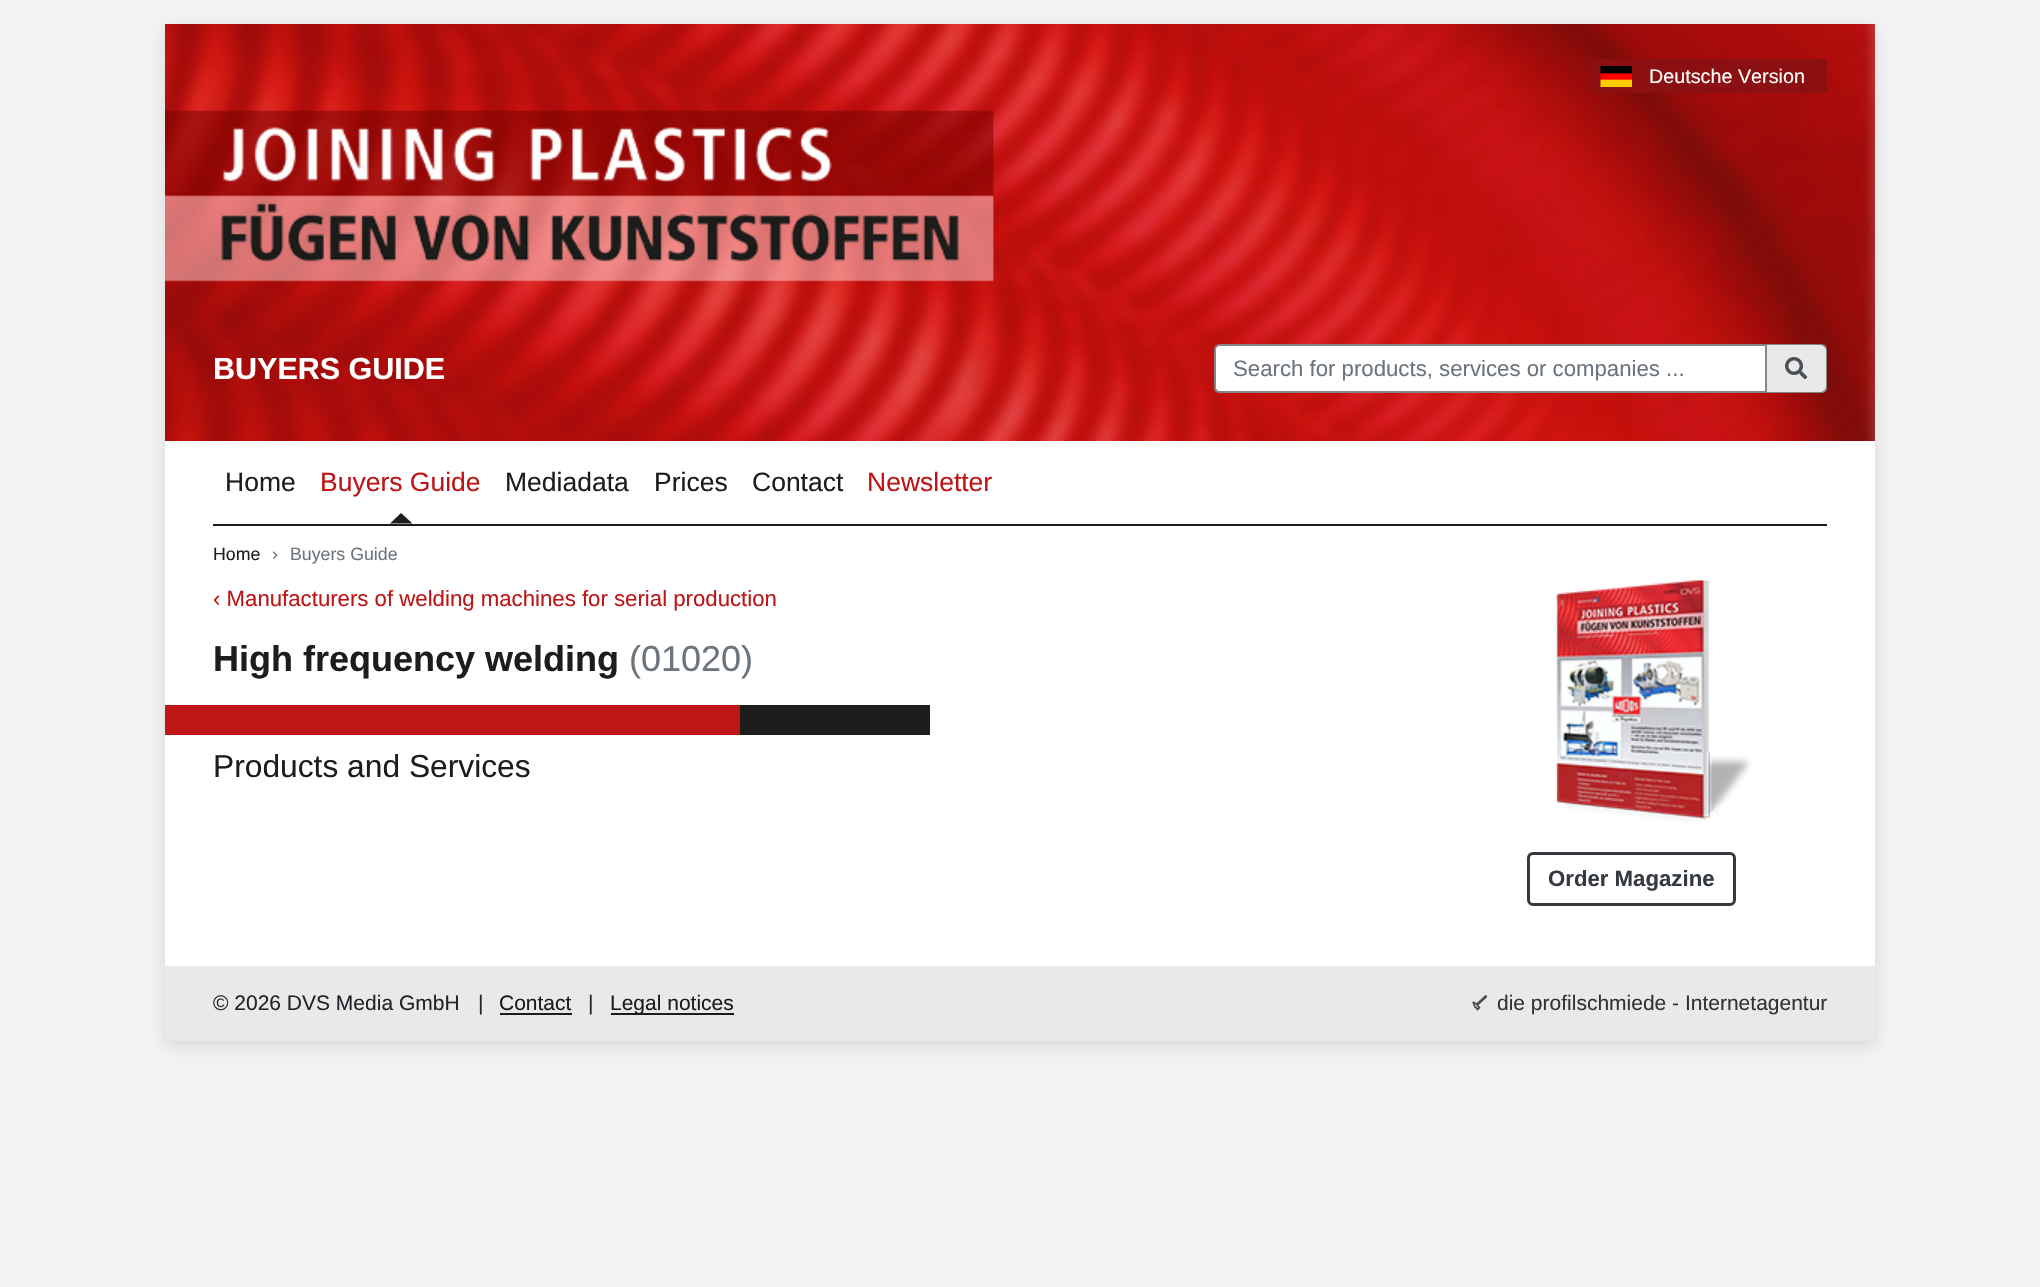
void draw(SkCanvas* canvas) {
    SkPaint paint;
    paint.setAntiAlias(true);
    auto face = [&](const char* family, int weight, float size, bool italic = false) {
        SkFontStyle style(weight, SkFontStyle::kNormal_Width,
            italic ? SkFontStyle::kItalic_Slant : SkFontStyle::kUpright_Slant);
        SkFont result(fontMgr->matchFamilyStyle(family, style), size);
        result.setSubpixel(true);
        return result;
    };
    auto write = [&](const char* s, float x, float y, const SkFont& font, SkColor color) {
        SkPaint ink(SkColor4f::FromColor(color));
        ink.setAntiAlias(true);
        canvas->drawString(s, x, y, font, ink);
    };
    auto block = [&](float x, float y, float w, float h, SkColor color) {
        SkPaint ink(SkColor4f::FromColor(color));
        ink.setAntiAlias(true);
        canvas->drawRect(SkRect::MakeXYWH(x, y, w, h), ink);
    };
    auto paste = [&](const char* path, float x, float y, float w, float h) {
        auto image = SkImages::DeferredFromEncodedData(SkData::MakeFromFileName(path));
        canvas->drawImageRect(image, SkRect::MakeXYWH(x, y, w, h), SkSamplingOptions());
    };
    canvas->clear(SkColorSetRGB(243, 243, 243));
    paint.setColor(SkColorSetRGB(217, 217, 217));
    paint.setMaskFilter(SkMaskFilter::MakeBlur(kNormal_SkBlurStyle, 7.5f));
    canvas->drawRect(SkRect::MakeXYWH(165, 29, 1710, 1017), paint);
    paint.setMaskFilter(nullptr);
    block(165, 441, 1710, 525, SK_ColorWHITE);
    paste("pic2.png", 165, 24, 1710, 417);
    block(1590, 59, 237, 34, SkColorSetRGB(140, 16, 17));
    paste("pic1.png", 1600, 66, 32, 21);
    auto kFont1 = face("Liberation Sans", 400, 19.75f);
    write("Deutsche Version", 1649, 83, kFont1, SK_ColorWHITE);
    auto kFont2 = face("Liberation Sans", 700, 30.5f);
    write("BUYERS GUIDE", 213, 379, kFont2, SK_ColorWHITE);
    paint.setStyle(SkPaint::kStroke_Style);
    paint.setStrokeWidth(2);
    paint.setColor(SkColorSetRGB(133, 133, 133));
    canvas->drawPath(SkPathBuilder().moveTo(1767, 345).lineTo(1821, 345).cubicTo(1824, 345, 1826, 347, 1826, 350).lineTo(1826, 387).cubicTo(1826, 390, 1824, 392, 1821, 392).lineTo(1767, 392).close().detach(), paint);
    paint.setStyle(SkPaint::kFill_Style);
    paint.setColor(SK_ColorWHITE);
    canvas->drawPath(SkPathBuilder().moveTo(1220, 345).lineTo(1766, 345).lineTo(1766, 392).lineTo(1220, 392).cubicTo(1217, 392, 1215, 390, 1215, 387).lineTo(1215, 350).cubicTo(1215, 347, 1217, 345, 1220, 345).close().detach(), paint);
    paint.setStyle(SkPaint::kStroke_Style);
    paint.setColor(SkColorSetRGB(133, 133, 133));
    canvas->drawPath(SkPathBuilder().moveTo(1220, 345).lineTo(1766, 345).lineTo(1766, 392).lineTo(1220, 392).cubicTo(1217, 392, 1215, 390, 1215, 387).lineTo(1215, 350).cubicTo(1215, 347, 1217, 345, 1220, 345).close().detach(), paint);
    auto kFont3 = face("Liberation Sans", 400, 22.2f);
    write("Search for products, services or companies ...", 1233, 376, kFont3, SkColorSetRGB(108, 117, 125));
    paint.setStyle(SkPaint::kFill_Style);
    paint.setColor(SkColorSetRGB(233, 233, 233));
    canvas->drawPath(SkPathBuilder().moveTo(1767, 345).lineTo(1820, 345).cubicTo(1823.5f, 345, 1826, 347.5f, 1826, 351).lineTo(1826, 386).cubicTo(1826, 389.5f, 1823.5f, 392, 1820, 392).lineTo(1767, 392).close().detach(), paint);
    paste("pic3.png", 1785, 357, 23, 23);
    block(213, 524, 1614, 2, SkColorSetRGB(29, 29, 27));
    auto kFont4 = face("Liberation Sans", 400, 26.5f);
    write("Home", 225, 491, kFont4, SkColorSetRGB(29, 29, 27));
    paint.setColor(SkColorSetRGB(29, 29, 29));
    canvas->drawPath(SkPathBuilder().moveTo(401, 513).lineTo(390, 523.5f).lineTo(412.5f, 523.5f).close().detach(), paint);
    write("Buyers Guide", 320, 491, kFont4, SkColorSetRGB(190, 22, 23));
    write("Mediadata", 505, 491, kFont4, SkColorSetRGB(29, 29, 27));
    write("Prices", 654, 491, kFont4, SkColorSetRGB(29, 29, 27));
    write("Contact", 752, 491, kFont4, SkColorSetRGB(29, 29, 27));
    write("Newsletter", 867, 491, kFont4, SkColorSetRGB(190, 22, 23));
    auto kFont5 = face("Liberation Sans", 400, 17.75f);
    write("Home", 213, 560, kFont5, SkColorSetRGB(29, 29, 27));
    write("›", 272, 560, kFont5, SkColorSetRGB(108, 117, 125));
    write("Buyers Guide", 290, 560, kFont5, SkColorSetRGB(108, 117, 125));
    write("‹ Manufacturers of welding machines for serial production", 213, 606, kFont3, SkColorSetRGB(190, 22, 23));
    auto kFont6 = face("Liberation Sans", 700, 36);
    write("High frequency welding", 213, 671, kFont6, SkColorSetRGB(29, 29, 27));
    auto kFont7 = face("Liberation Sans", 400, 36);
    write("(01020)", 629, 671, kFont7, SkColorSetRGB(108, 117, 125));
    block(165, 705, 575, 30, SkColorSetRGB(190, 22, 23));
    block(740, 705, 190, 30, SkColorSetRGB(29, 29, 27));
    auto kFont8 = face("Liberation Sans", 400, 31.75f);
    write("Products and Services", 213, 777, kFont8, SkColorSetRGB(29, 29, 27));
    paste("pic4.png", 1556, 580, 196, 242);
    paint.setStyle(SkPaint::kStroke_Style);
    paint.setStrokeWidth(3);
    paint.setColor(SkColorSetRGB(52, 58, 64));
    canvas->drawRoundRect(SkRect::MakeXYWH(1528.5f, 853.5f, 206, 51), 4.5f, 4.5f, paint);
    auto kFont9 = face("Liberation Sans", 700, 22.2f);
    write("Order Magazine", 1548, 886, kFont9, SkColorSetRGB(52, 58, 64));
    block(165, 966, 1710, 75, SkColorSetRGB(233, 233, 233));
    auto kFont10 = face("Liberation Sans", 400, 21);
    write("© 2026 DVS Media GmbH", 213, 1010, kFont10, SkColorSetRGB(33, 37, 41));
    write("|", 478, 1010, kFont10, SkColorSetRGB(33, 37, 41));
    write("Contact", 499, 1010, kFont10, SkColorSetRGB(29, 29, 27));
    block(500, 1013, 72, 2, SkColorSetRGB(29, 29, 27));
    write("|", 588, 1010, kFont10, SkColorSetRGB(33, 37, 41));
    block(611, 1013, 123, 2, SkColorSetRGB(29, 29, 27));
    write("Legal notices", 610, 1010, kFont10, SkColorSetRGB(29, 29, 27));
    paste("pic5.png", 1472, 995, 16, 16);
    write("die profilschmiede - Internetagentur", 1497, 1010, kFont10, SkColorSetRGB(51, 51, 51));
}
